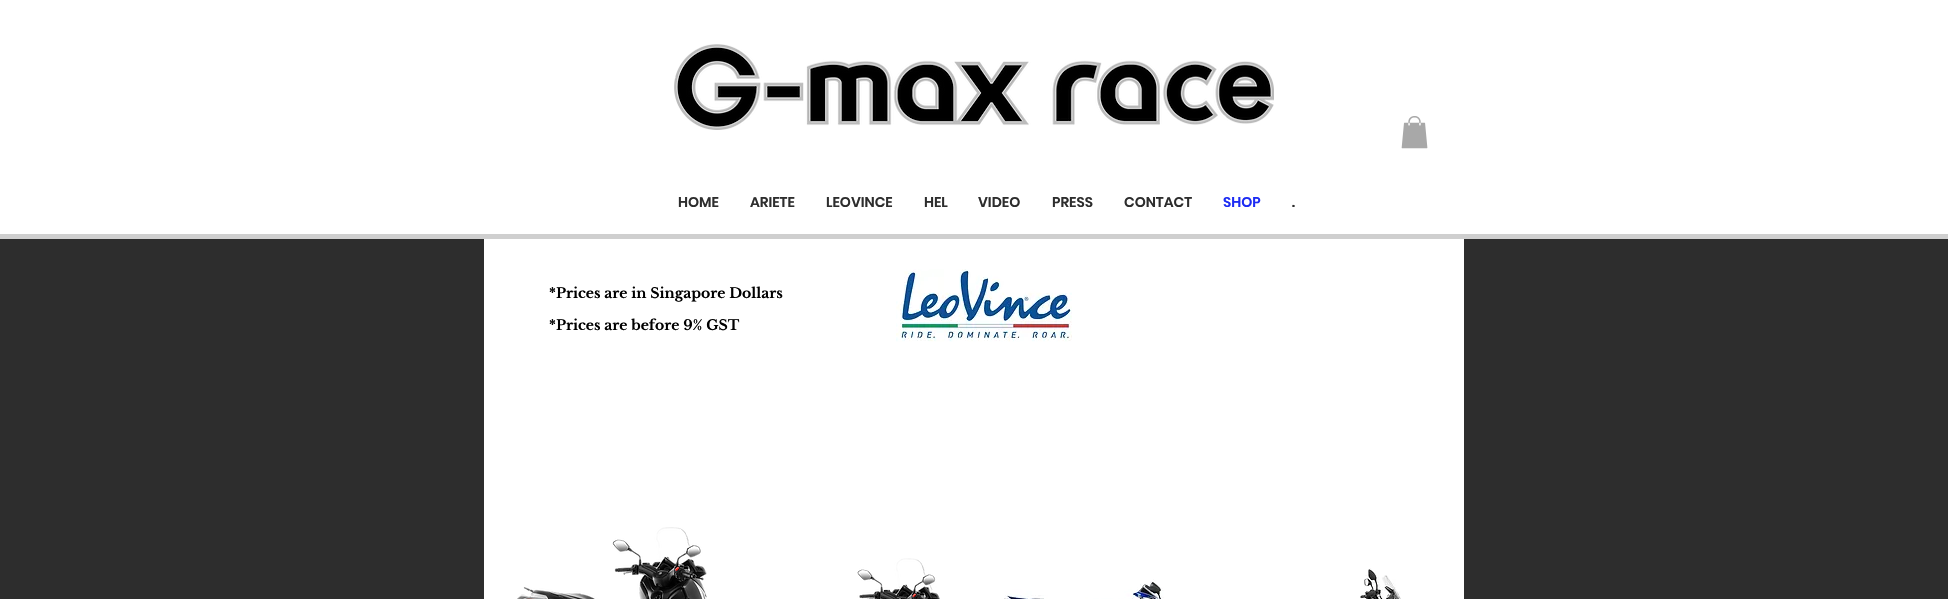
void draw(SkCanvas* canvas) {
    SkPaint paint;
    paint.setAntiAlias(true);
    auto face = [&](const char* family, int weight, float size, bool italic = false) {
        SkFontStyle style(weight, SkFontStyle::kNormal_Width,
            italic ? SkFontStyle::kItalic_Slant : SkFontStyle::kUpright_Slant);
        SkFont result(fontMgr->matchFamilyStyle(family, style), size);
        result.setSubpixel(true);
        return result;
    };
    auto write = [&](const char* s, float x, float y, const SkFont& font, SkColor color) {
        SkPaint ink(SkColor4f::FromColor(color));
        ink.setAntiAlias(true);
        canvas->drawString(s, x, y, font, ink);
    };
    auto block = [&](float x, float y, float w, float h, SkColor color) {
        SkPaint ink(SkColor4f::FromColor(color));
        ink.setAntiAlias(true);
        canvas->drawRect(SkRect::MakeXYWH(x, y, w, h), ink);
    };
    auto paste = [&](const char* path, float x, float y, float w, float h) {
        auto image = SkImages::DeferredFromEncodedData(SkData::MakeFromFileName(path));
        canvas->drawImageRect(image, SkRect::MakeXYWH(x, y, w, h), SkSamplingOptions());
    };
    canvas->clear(SkColorSetRGB(45, 45, 45));
    block(0, 0, 1948, 234, SK_ColorWHITE);
    block(0, 234, 1948, 5, SkColorSetRGB(207, 207, 207));
    paste("pic1.png", 674, 44, 600, 86);
    paste("pic2.png", 1401, 116, 27, 33);
    auto kFont1 = face("Poppins", 600, 14);
    write("HOME", 678, 207, kFont1, SkColorSetRGB(45, 45, 45));
    write("ARIETE", 750, 207, kFont1, SkColorSetRGB(45, 45, 45));
    write("LEOVINCE", 826, 207, kFont1, SkColorSetRGB(45, 45, 45));
    write("HEL", 924, 207, kFont1, SkColorSetRGB(45, 45, 45));
    write("VIDEO", 978, 207, kFont1, SkColorSetRGB(45, 45, 45));
    write("PRESS", 1052, 207, kFont1, SkColorSetRGB(45, 45, 45));
    write("CONTACT", 1124, 207, kFont1, SkColorSetRGB(45, 45, 45));
    write("SHOP", 1223, 207, kFont1, SkColorSetRGB(29, 44, 243));
    write(".", 1292, 207, kFont1, SkColorSetRGB(45, 45, 45));
    block(484, 239, 980, 360, SK_ColorWHITE);
    auto kFont2 = face("Libre Baskerville", 700, 14);
    write("*Prices are in Singapore Dollars", 549, 298, kFont2, SK_ColorBLACK);
    paste("pic3.png", 896, 269, 176, 73);
    write("*Prices are before 9% GST", 549, 330, kFont2, SK_ColorBLACK);
    paste("pic4.png", 517, 527, 190, 72);
    paste("pic5.png", 857, 558, 83, 41);
    paste("pic6.png", 1004, 579, 160, 20);
    paste("pic7.png", 1360, 568, 41, 31);
}
